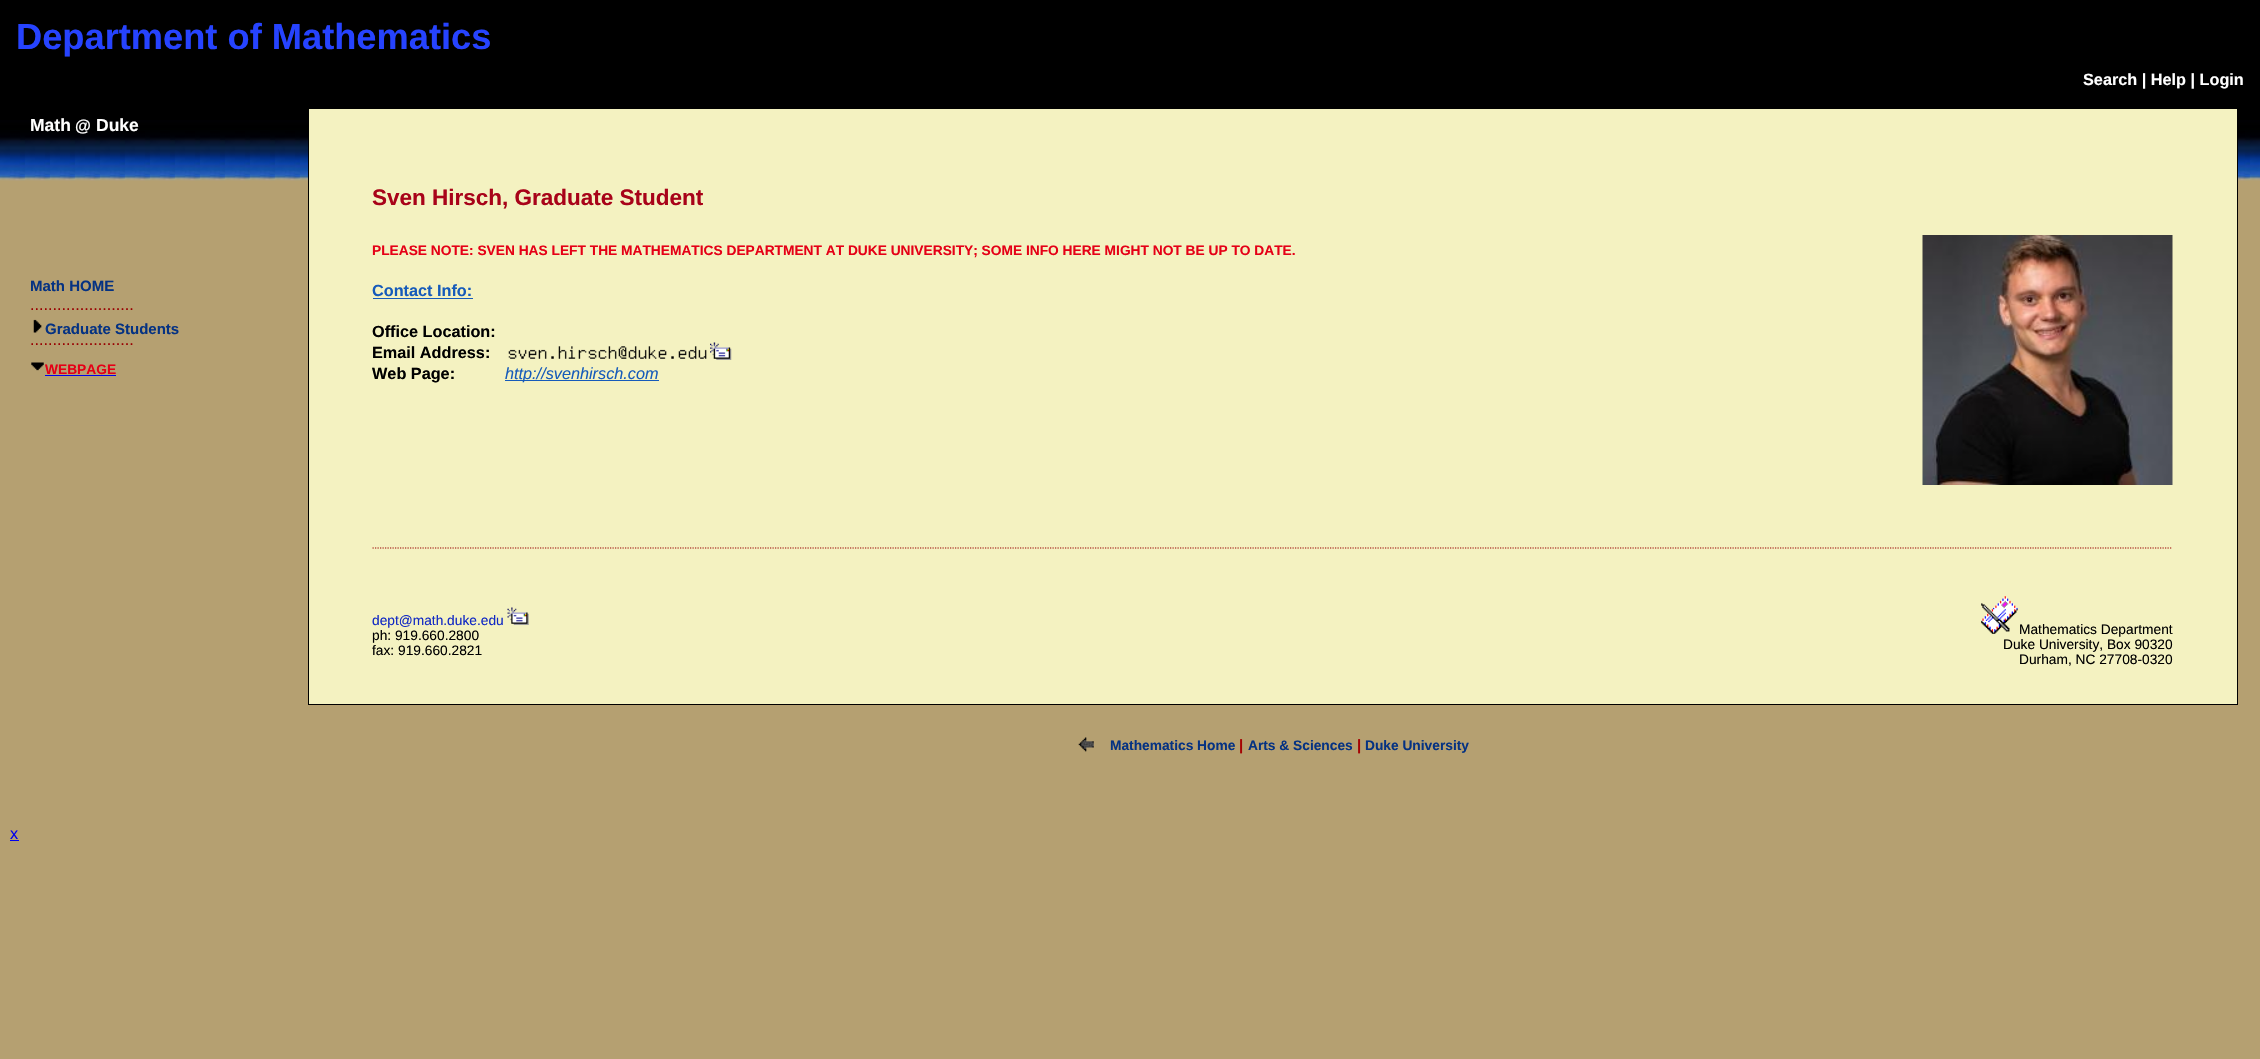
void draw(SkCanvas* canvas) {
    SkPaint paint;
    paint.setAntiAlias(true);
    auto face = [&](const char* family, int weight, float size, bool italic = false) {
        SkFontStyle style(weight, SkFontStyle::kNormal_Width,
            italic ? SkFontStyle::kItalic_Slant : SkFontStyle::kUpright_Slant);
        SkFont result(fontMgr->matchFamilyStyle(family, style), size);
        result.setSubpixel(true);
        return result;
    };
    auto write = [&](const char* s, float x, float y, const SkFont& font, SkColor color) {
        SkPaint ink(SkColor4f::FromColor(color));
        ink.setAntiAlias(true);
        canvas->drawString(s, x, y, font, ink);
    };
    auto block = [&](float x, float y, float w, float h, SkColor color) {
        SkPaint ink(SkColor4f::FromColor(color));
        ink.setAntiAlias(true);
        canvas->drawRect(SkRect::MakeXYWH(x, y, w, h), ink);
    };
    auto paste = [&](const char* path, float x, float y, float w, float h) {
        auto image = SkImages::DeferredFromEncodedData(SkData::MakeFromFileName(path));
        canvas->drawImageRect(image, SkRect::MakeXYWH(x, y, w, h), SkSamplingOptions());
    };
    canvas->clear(SkColorSetRGB(181, 160, 113));
    paste("pic1.png", 0, 0, 2260, 181);
    auto kFont1 = face("Liberation Sans", 700, 36.25f);
    write("Department of Mathematics", 16, 49, kFont1, SkColorSetRGB(38, 67, 255));
    auto kFont2 = face("Liberation Sans", 700, 16.25f);
    write("Search | Help | Login", 2083, 85, kFont2, SK_ColorWHITE);
    auto kFont3 = face("Liberation Sans", 700, 17.5f);
    write("Math", 30, 131, kFont3, SK_ColorWHITE);
    write("@", 75, 131, kFont2, SK_ColorWHITE);
    write("Duke", 96, 131, kFont3, SK_ColorWHITE);
    auto kFont4 = face("Liberation Sans", 700, 15);
    write("Math HOME", 30, 291, kFont4, SkColorSetRGB(5, 50, 130));
    auto kFont5 = face("Liberation Sans", 400, 16.25f);
    write(".......................", 30, 310, kFont5, SkColorSetRGB(153, 0, 0));
    paste("pic2.png", 33, 319, 9, 14);
    write("Graduate Students", 45, 334, kFont4, SkColorSetRGB(5, 50, 130));
    write(".......................", 30, 345, kFont5, SkColorSetRGB(153, 0, 0));
    paste("pic3.png", 31, 362, 13, 9);
    auto kFont6 = face("Liberation Sans", 700, 13.75f);
    write("WEBPAGE", 45, 374, kFont6, SkColorSetRGB(229, 0, 22));
    block(45, 375, 71, 1, SkColorSetRGB(0, 0, 238));
    paint.setColor(SkColorSetRGB(244, 242, 193));
    canvas->drawRect(SkRect::MakeXYWH(308.5f, 108.5f, 1929, 596), paint);
    paint.setStyle(SkPaint::kStroke_Style);
    paint.setStrokeWidth(1);
    paint.setColor(SK_ColorBLACK);
    canvas->drawRect(SkRect::MakeXYWH(308.5f, 108.5f, 1929, 596), paint);
    auto kFont7 = face("Liberation Sans", 700, 22.5f);
    write("Sven Hirsch, Graduate Student", 372, 205, kFont7, SkColorSetRGB(168, 3, 25));
    write("PLEASE NOTE: SVEN HAS LEFT THE MATHEMATICS DEPARTMENT AT DUKE UNIVERSITY; SOME INFO HERE MIGHT NOT BE UP TO DATE.", 372, 255, kFont6, SkColorSetRGB(229, 0, 22));
    paste("pic4.png", 1922, 235, 251, 250);
    write("Contact Info:", 372, 296, kFont2, SkColorSetRGB(22, 91, 186));
    block(373, 298, 100, 1, SkColorSetRGB(22, 91, 186));
    write("Office Location:", 372, 337, kFont2, SK_ColorBLACK);
    write("Email Address:", 372, 358, kFont2, SK_ColorBLACK);
    paste("pic5.png", 508, 346, 199, 13);
    paste("pic6.png", 710, 342, 22, 18);
    write("Web Page:", 372, 379, kFont2, SK_ColorBLACK);
    block(505, 380, 154, 1, SkColorSetRGB(22, 91, 186));
    auto kFont8 = face("Liberation Sans", 400, 16.25f, true);
    write("http://svenhirsch.com", 505, 379, kFont8, SkColorSetRGB(22, 91, 186));
    paint.setStrokeWidth(1.2f);
    paint.setColor(SkColorSetRGB(153, 0, 0));
    paint.setPathEffect(SkDashPathEffect::Make({{1.25f, 1.25f}}, 0));
    canvas->drawPath(SkPathBuilder().moveTo(372.5f, 548).lineTo(2172.5f, 548).detach(), paint);
    paint.setPathEffect(nullptr);
    auto kFont9 = face("Liberation Sans", 400, 13.75f);
    write("dept@math.duke.edu", 372, 625, kFont9, SkColorSetRGB(17, 41, 196));
    paste("pic7.png", 507, 607, 22, 18);
    write("ph: 919.660.2800", 372, 640, kFont9, SK_ColorBLACK);
    write("fax: 919.660.2821", 372, 655, kFont9, SK_ColorBLACK);
    paste("pic8.png", 1981, 596, 37, 38);
    write("Mathematics Department", 2019, 634, kFont9, SK_ColorBLACK);
    write("Duke University, Box 90320", 2003, 649, kFont9, SK_ColorBLACK);
    write("Durham, NC 27708-0320", 2019, 664, kFont9, SK_ColorBLACK);
    paste("pic9.png", 1078, 737, 16, 15);
    write("Mathematics Home", 1110, 750, kFont6, SkColorSetRGB(5, 50, 130));
    write("|", 1239, 750, kFont4, SkColorSetRGB(165, 3, 3));
    write("Arts & Sciences", 1248, 750, kFont6, SkColorSetRGB(5, 50, 130));
    write("|", 1357, 750, kFont4, SkColorSetRGB(165, 3, 3));
    write("Duke University", 1365, 750, kFont6, SkColorSetRGB(5, 50, 130));
    write("x", 10, 839, kFont5, SkColorSetRGB(0, 0, 238));
    block(10, 840, 9, 1, SkColorSetRGB(0, 0, 238));
}
